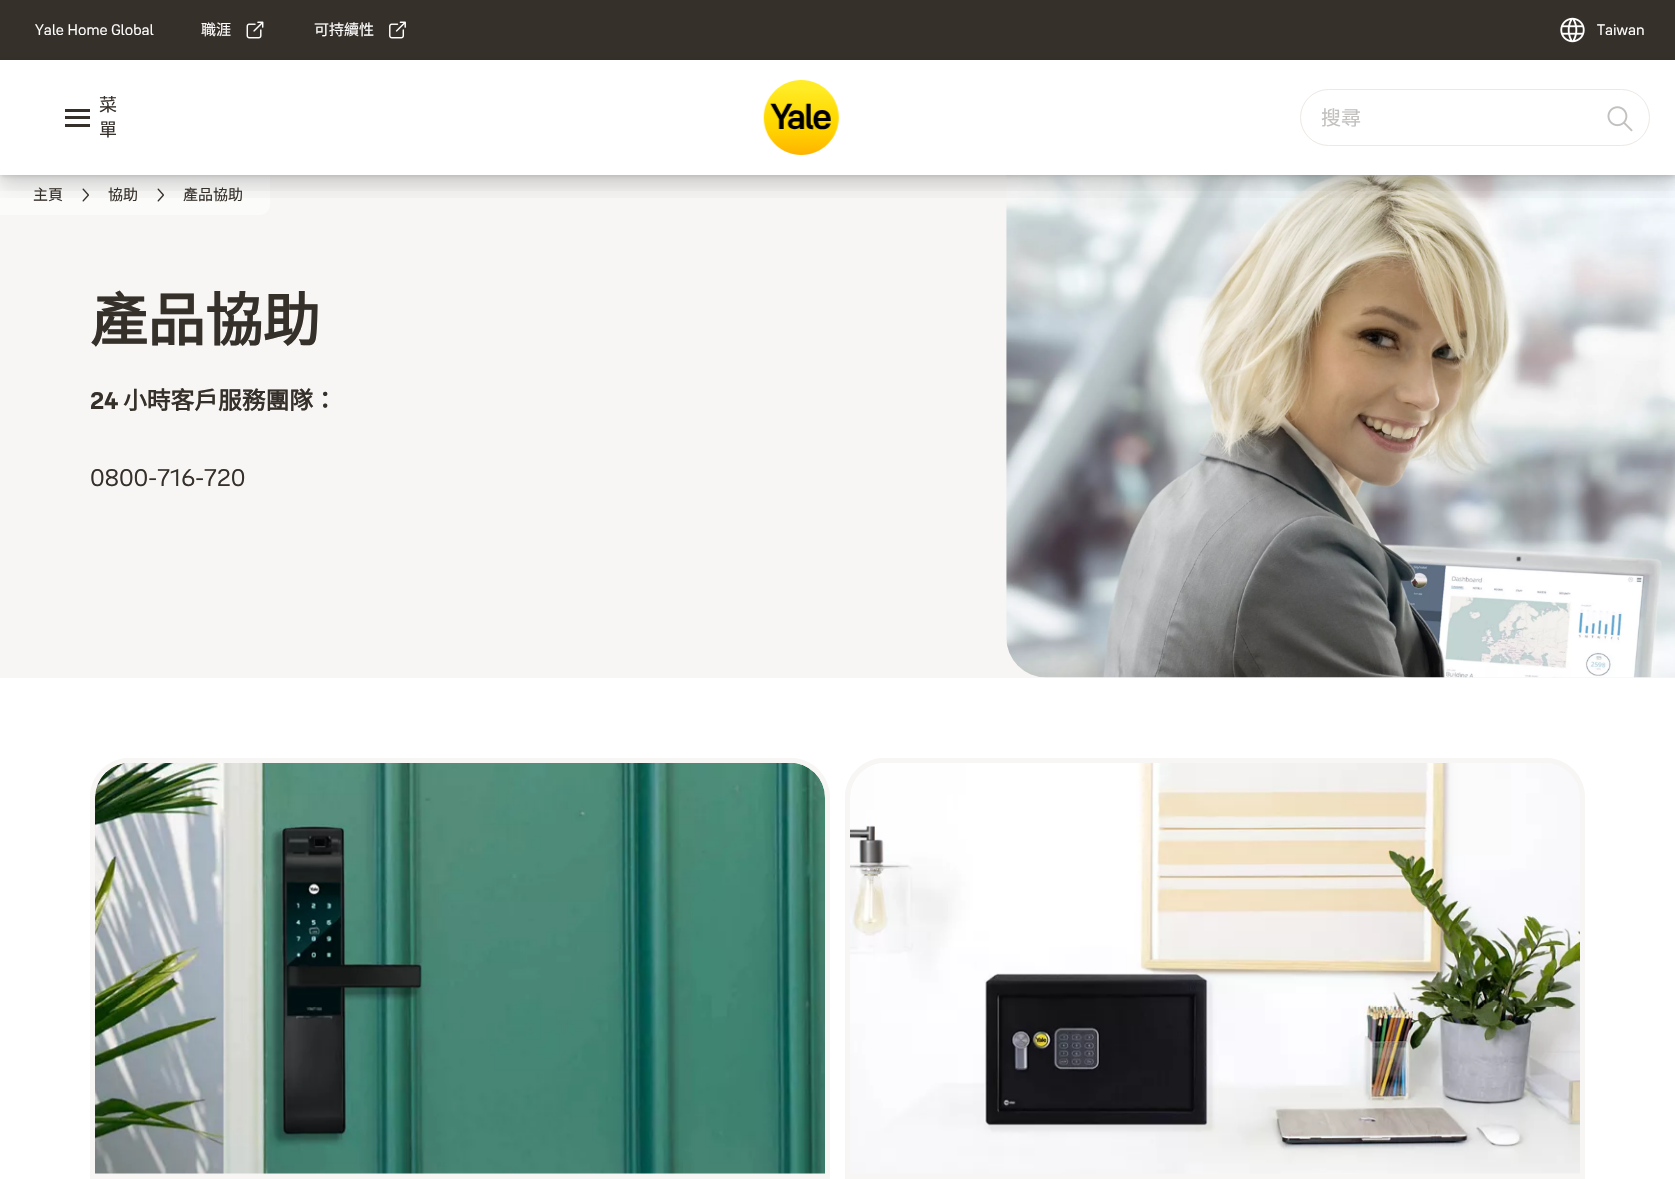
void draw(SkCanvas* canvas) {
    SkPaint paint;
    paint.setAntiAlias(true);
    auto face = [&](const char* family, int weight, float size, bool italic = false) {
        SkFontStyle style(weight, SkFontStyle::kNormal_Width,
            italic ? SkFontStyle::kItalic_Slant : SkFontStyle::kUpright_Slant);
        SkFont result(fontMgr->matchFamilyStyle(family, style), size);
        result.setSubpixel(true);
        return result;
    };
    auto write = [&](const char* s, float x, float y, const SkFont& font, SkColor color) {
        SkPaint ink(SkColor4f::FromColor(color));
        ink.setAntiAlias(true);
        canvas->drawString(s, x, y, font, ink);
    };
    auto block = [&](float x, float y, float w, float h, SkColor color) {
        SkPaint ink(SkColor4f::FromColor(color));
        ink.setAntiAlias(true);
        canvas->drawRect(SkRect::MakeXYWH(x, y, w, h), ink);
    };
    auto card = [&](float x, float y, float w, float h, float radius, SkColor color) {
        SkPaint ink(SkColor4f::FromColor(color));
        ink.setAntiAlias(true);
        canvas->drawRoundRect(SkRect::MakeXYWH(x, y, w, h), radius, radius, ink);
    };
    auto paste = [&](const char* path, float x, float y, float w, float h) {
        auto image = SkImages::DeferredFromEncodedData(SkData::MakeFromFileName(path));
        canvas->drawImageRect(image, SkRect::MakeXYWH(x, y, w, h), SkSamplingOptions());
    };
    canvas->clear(SK_ColorWHITE);
    block(0, 0, 1675, 60, SkColorSetRGB(54, 48, 42));
    auto kFont1 = face("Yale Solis", 400, 15);
    write("Yale Home Global", 35, 35, kFont1, SK_ColorWHITE);
    auto kFont2 = face("Noto Sans CJK TC", 400, 15);
    write("職涯", 201, 35, kFont2, SK_ColorWHITE);
    paste("pic1.png", 246, 21, 18, 18);
    write("可持續性", 314, 35, kFont2, SK_ColorWHITE);
    paste("pic2.png", 389, 21, 17, 18);
    paste("pic3.png", 1560, 17, 25, 26);
    write("Taiwan", 1597, 35, kFont1, SK_ColorWHITE);
    block(65, 109, 25, 3, SkColorSetRGB(54, 48, 42));
    block(65, 116, 25, 3, SkColorSetRGB(54, 48, 42));
    block(65, 124, 25, 3, SkColorSetRGB(54, 48, 42));
    paste("pic4.png", 763, 80, 76, 75);
    paint.setStyle(SkPaint::kStroke_Style);
    paint.setStrokeWidth(1);
    paint.setColor(SkColorSetRGB(237, 232, 228));
    canvas->drawRoundRect(SkRect::MakeXYWH(1300.5f, 89.5f, 349, 56), 28, 28, paint);
    paste("pic5.png", 1607, 106, 26, 26);
    block(0, 175, 1675, 503, SkColorSetRGB(247, 246, 244));
    paint.setStyle(SkPaint::kFill_Style);
    paint.setColor(SkColorSetRGB(251, 251, 250));
    canvas->drawPath(SkPathBuilder().moveTo(0, 175).lineTo(270, 175).lineTo(270, 205).cubicTo(270, 210.5f, 265.5f, 215, 260, 215).lineTo(0, 215).close().detach(), paint);
    paste("pic8.png", 1006, 175, 669, 503);
    canvas->save();
    canvas->clipPath(SkPathBuilder(SkPathFillType::kEvenOdd).moveTo(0, 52).lineTo(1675, 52).lineTo(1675, 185).lineTo(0, 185).close().moveTo(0, 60).lineTo(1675, 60).lineTo(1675, 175).lineTo(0, 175).close().detach(), true);
    paint.setColor(SkColorSetARGB(38, 0, 0, 0));
    paint.setMaskFilter(SkMaskFilter::MakeBlur(kNormal_SkBlurStyle, 2.5f));
    canvas->drawRect(SkRect::MakeXYWH(0, 61, 1675, 115), paint);
    paint.setMaskFilter(nullptr);
    canvas->restore();
    paste("pic6.png", 82, 188, 7, 14);
    paste("pic7.png", 157, 188, 7, 14);
    canvas->save();
    canvas->clipRect(SkRect::MakeXYWH(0, 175, 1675, 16));
    paint.setColor(SkColorSetARGB(26, 0, 0, 0));
    paint.setMaskFilter(SkMaskFilter::MakeBlur(kNormal_SkBlurStyle, 7.5f));
    canvas->drawRect(SkRect::MakeXYWH(0, 70, 1675, 115), paint);
    paint.setMaskFilter(nullptr);
    canvas->restore();
    canvas->save();
    canvas->clipRect(SkRect::MakeXYWH(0, 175, 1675, 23));
    paint.setColor(SkColorSetARGB(13, 0, 0, 0));
    paint.setMaskFilter(SkMaskFilter::MakeBlur(kNormal_SkBlurStyle, 12.5f));
    canvas->drawRect(SkRect::MakeXYWH(0, 80, 1675, 115), paint);
    paint.setMaskFilter(nullptr);
    canvas->restore();
    auto kFont3 = face("Noto Sans CJK TC", 400, 18);
    write("菜", 99, 111, kFont3, SkColorSetRGB(54, 48, 42));
    write("單", 99, 136, kFont3, SkColorSetRGB(54, 48, 42));
    auto kFont4 = face("Noto Sans CJK TC", 400, 20);
    write("搜尋", 1321, 125, kFont4, SkColorSetRGB(195, 193, 191));
    write("主頁", 33, 200, kFont2, SkColorSetRGB(54, 48, 42));
    write("協助", 108, 200, kFont2, SkColorSetRGB(54, 48, 42));
    write("產品協助", 183, 200, kFont2, SkColorSetRGB(54, 48, 42));
    auto kFont5 = face("Noto Sans CJK TC", 700, 57.5f);
    write("產品協助", 90, 341, kFont5, SkColorSetRGB(54, 48, 42));
    auto kFont6 = face("Yale Solis", 700, 23.75f);
    write("24", 90, 409, kFont6, SkColorSetRGB(54, 48, 42));
    auto kFont7 = face("Noto Sans CJK TC", 700, 23.75f);
    write("小時客戶服務團隊：", 123, 409, kFont7, SkColorSetRGB(54, 48, 42));
    auto kFont8 = face("Yale Solis", 400, 23.75f);
    write("0800-716-720", 90, 486, kFont8, SkColorSetRGB(54, 48, 42));
    card(90, 758, 740, 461, 40, SkColorSetRGB(247, 246, 244));
    paint.setColor(SkColorSetRGB(247, 246, 244));
    canvas->drawPath(SkPathBuilder(SkPathFillType::kEvenOdd).moveTo(130, 758).lineTo(790, 758).cubicTo(812, 758, 830, 775, 830, 798).lineTo(830, 1174).lineTo(90, 1174).lineTo(90, 798).cubicTo(90, 775, 108, 758, 130, 758).close().moveTo(130, 762).lineTo(790, 762).cubicTo(809, 762, 825, 778, 825, 798).lineTo(825, 1174).lineTo(95, 1174).lineTo(95, 798).cubicTo(95, 778, 111, 762, 130, 762).close().detach(), paint);
    paste("pic9.png", 95, 763, 730, 411);
    card(845, 758, 740, 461, 40, SkColorSetRGB(247, 246, 244));
    canvas->drawPath(SkPathBuilder(SkPathFillType::kEvenOdd).moveTo(885, 758).lineTo(1545, 758).cubicTo(1567, 758, 1585, 775, 1585, 798).lineTo(1585, 1174).lineTo(845, 1174).lineTo(845, 798).cubicTo(845, 775, 863, 758, 885, 758).close().moveTo(885, 762).lineTo(1545, 762).cubicTo(1564, 762, 1580, 778, 1580, 798).lineTo(1580, 1174).lineTo(850, 1174).lineTo(850, 798).cubicTo(850, 778, 866, 762, 885, 762).close().detach(), paint);
    paste("pic10.png", 850, 763, 730, 411);
}
